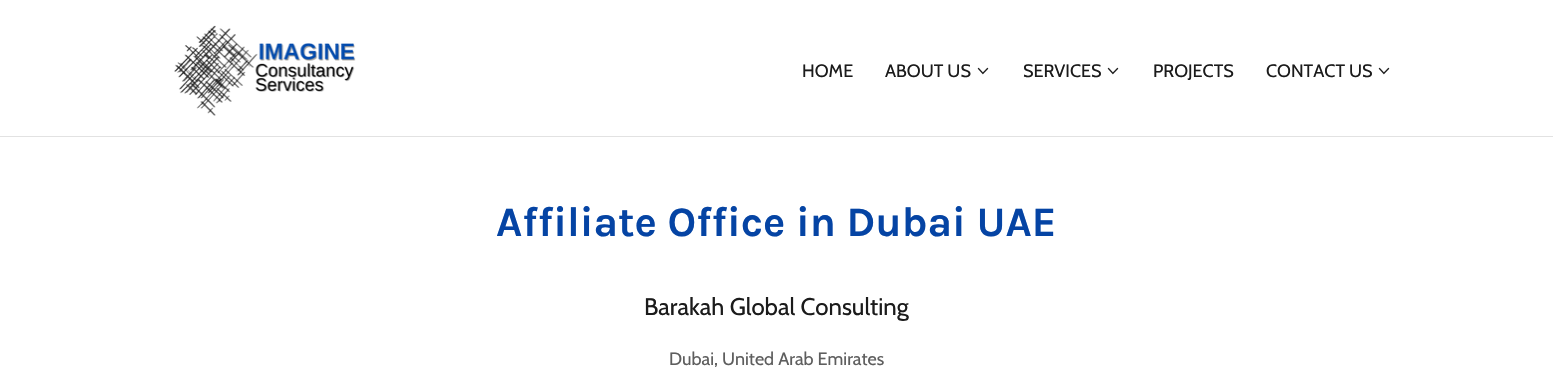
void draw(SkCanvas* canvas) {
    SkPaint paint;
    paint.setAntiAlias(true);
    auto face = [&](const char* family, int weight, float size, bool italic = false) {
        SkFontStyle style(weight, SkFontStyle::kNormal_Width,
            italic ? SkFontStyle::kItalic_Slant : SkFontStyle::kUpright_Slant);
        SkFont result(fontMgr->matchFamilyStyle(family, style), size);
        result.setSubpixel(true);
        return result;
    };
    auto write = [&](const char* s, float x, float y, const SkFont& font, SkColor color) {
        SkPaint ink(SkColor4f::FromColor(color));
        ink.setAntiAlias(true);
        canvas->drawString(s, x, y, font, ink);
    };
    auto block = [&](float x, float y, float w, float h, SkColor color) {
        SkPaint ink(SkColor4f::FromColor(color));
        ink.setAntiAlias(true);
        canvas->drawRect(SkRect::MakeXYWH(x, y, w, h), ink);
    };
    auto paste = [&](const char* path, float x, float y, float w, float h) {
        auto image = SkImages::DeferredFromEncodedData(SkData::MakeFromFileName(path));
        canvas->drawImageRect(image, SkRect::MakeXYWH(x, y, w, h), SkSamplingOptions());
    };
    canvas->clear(SK_ColorWHITE);
    paste("pic1.png", 174, 25, 182, 91);
    auto kFont1 = face("Cabin", 400, 18);
    write("HOME", 802, 77, kFont1, SkColorSetRGB(27, 27, 27));
    write("ABOUT US", 885, 77, kFont1, SkColorSetRGB(27, 27, 27));
    paste("pic2.png", 977, 67, 12, 8);
    write("SERVICES", 1023, 77, kFont1, SkColorSetRGB(27, 27, 27));
    paste("pic2.png", 1107, 67, 12, 8);
    write("PROJECTS", 1153, 77, kFont1, SkColorSetRGB(27, 27, 27));
    write("CONTACT US", 1266, 77, kFont1, SkColorSetRGB(27, 27, 27));
    paste("pic2.png", 1378, 67, 12, 8);
    block(0, 136, 1553, 1, SkColorSetRGB(226, 226, 226));
    auto kFont2 = face("Karla", 700, 42);
    write("Affiliate Office in Dubai UAE", 496, 236, kFont2, SkColorSetRGB(5, 68, 164));
    auto kFont3 = face("Cabin", 400, 24);
    write("Barakah Global Consulting", 644, 315, kFont3, SkColorSetRGB(27, 27, 27));
    write("Dubai, United Arab Emirates", 669, 365, kFont1, SkColorSetRGB(94, 94, 94));
}
